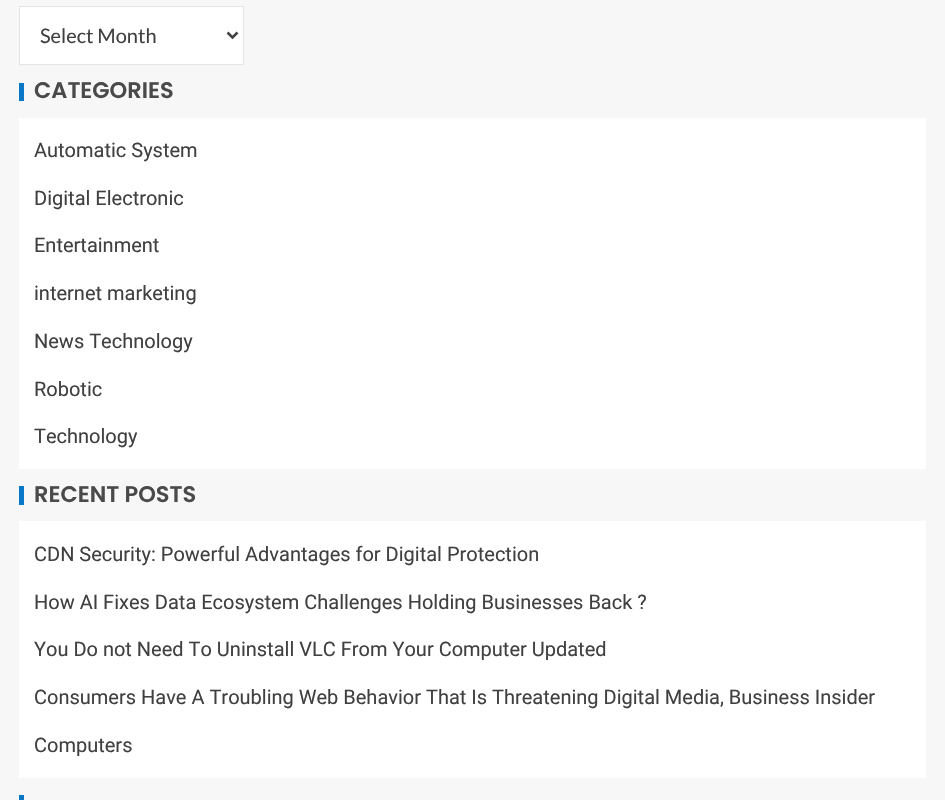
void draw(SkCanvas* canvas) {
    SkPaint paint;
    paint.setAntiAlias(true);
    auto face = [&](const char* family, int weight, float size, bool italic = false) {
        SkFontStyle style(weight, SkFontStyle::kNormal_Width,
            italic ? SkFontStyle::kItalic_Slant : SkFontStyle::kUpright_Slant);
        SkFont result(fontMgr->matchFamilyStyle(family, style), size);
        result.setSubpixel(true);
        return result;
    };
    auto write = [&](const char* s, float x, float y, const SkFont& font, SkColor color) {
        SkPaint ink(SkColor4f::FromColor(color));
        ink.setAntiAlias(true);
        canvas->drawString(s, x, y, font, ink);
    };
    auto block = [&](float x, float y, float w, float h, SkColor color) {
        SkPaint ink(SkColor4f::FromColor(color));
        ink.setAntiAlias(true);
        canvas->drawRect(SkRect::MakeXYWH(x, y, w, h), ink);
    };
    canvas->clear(SkColorSetRGB(247, 247, 247));
    paint.setColor(SK_ColorWHITE);
    canvas->drawRect(SkRect::MakeXYWH(19.5f, 6.5f, 224, 58), paint);
    paint.setStyle(SkPaint::kStroke_Style);
    paint.setStrokeWidth(1);
    paint.setColor(SkColorSetRGB(228, 228, 228));
    canvas->drawRect(SkRect::MakeXYWH(19.5f, 6.5f, 224, 58), paint);
    paint.setStrokeWidth(2.5f);
    paint.setColor(SkColorSetRGB(64, 64, 64));
    canvas->drawPath(SkPathBuilder().moveTo(227.5f, 32.5f).lineTo(232.5f, 37.5f).lineTo(237.5f, 32.5f).detach(), paint);
    auto kFont1 = face("Lato", 400, 20);
    write("Select Month", 40, 43, kFont1, SkColorSetRGB(64, 64, 64));
    block(19, 83, 5, 18, SkColorSetRGB(7, 118, 198));
    auto kFont2 = face("Poppins", 600, 22.5f);
    write("CATEGORIES", 34, 98, kFont2, SkColorSetRGB(74, 74, 74));
    block(19, 118, 907, 351, SK_ColorWHITE);
    auto kFont3 = face("Roboto", 400, 20);
    write("Automatic System", 34, 157, kFont3, SkColorSetRGB(64, 64, 64));
    write("Digital Electronic", 34, 205, kFont3, SkColorSetRGB(64, 64, 64));
    write("Entertainment", 34, 252, kFont3, SkColorSetRGB(64, 64, 64));
    write("internet marketing", 34, 300, kFont3, SkColorSetRGB(64, 64, 64));
    write("News Technology", 34, 348, kFont3, SkColorSetRGB(64, 64, 64));
    write("Robotic", 34, 396, kFont3, SkColorSetRGB(64, 64, 64));
    write("Technology", 34, 443, kFont3, SkColorSetRGB(64, 64, 64));
    block(19, 486, 5, 19, SkColorSetRGB(7, 118, 198));
    write("RECENT POSTS", 34, 502, kFont2, SkColorSetRGB(74, 74, 74));
    block(19, 521, 907, 257, SK_ColorWHITE);
    write("CDN Security: Powerful Advantages for Digital Protection", 34, 561, kFont3, SkColorSetRGB(64, 64, 64));
    write("How AI Fixes Data Ecosystem Challenges Holding Businesses Back ?", 34, 609, kFont3, SkColorSetRGB(64, 64, 64));
    write("You Do not Need To Uninstall VLC From Your Computer Updated", 34, 656, kFont3, SkColorSetRGB(64, 64, 64));
    write("Consumers Have A Troubling Web Behavior That Is Threatening Digital Media, Business Insider", 34, 704, kFont3, SkColorSetRGB(64, 64, 64));
    write("Computers", 34, 752, kFont3, SkColorSetRGB(64, 64, 64));
    block(19, 795, 5, 5, SkColorSetRGB(7, 118, 198));
}
